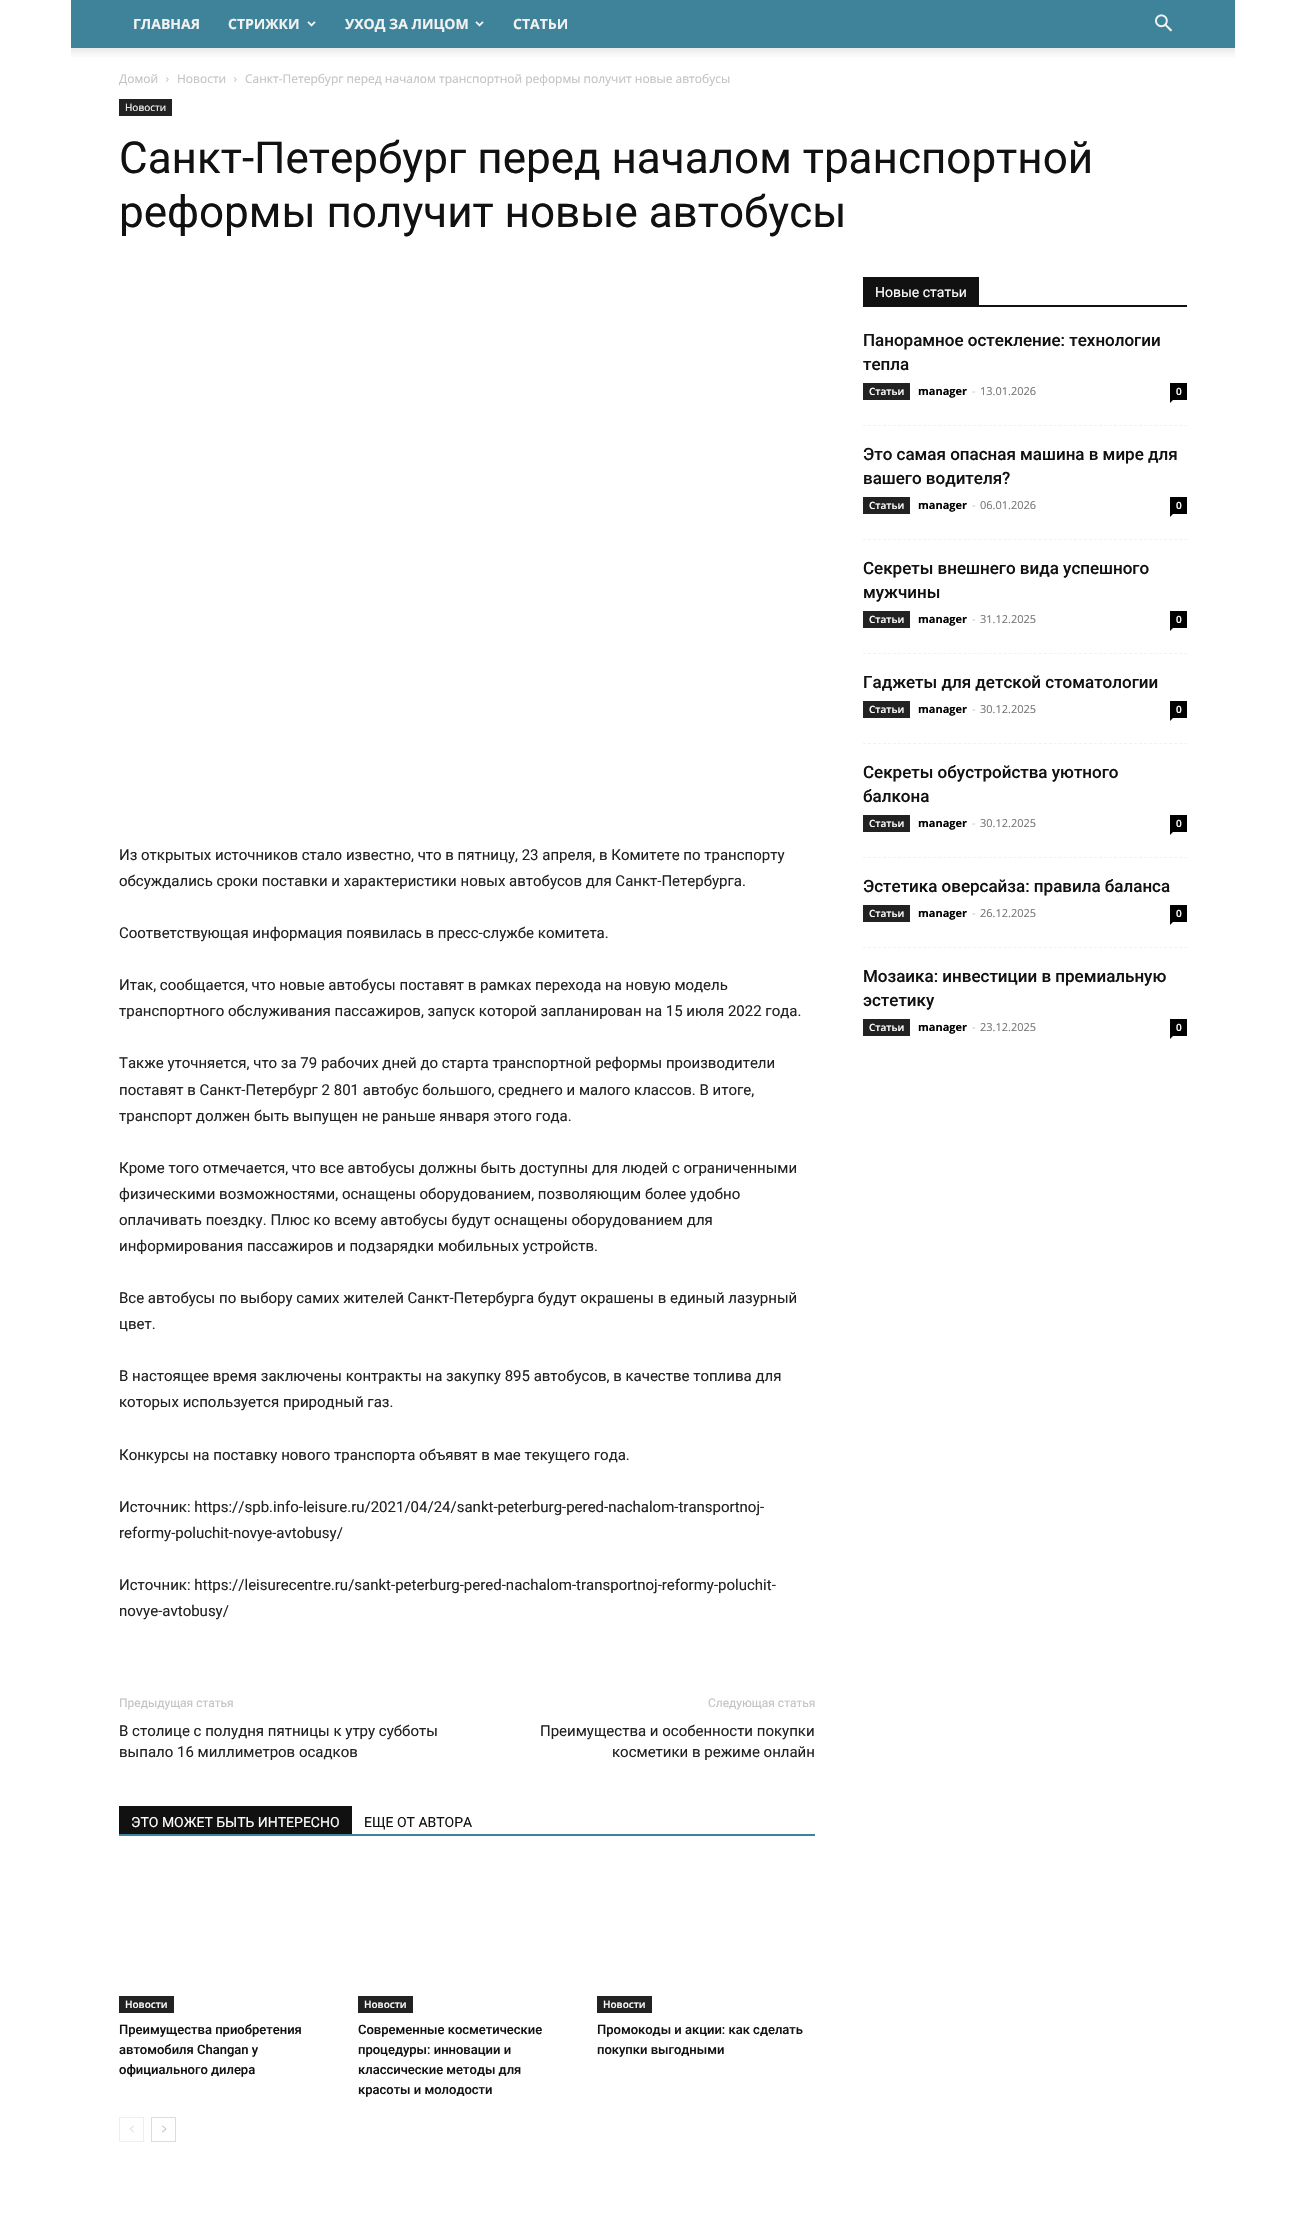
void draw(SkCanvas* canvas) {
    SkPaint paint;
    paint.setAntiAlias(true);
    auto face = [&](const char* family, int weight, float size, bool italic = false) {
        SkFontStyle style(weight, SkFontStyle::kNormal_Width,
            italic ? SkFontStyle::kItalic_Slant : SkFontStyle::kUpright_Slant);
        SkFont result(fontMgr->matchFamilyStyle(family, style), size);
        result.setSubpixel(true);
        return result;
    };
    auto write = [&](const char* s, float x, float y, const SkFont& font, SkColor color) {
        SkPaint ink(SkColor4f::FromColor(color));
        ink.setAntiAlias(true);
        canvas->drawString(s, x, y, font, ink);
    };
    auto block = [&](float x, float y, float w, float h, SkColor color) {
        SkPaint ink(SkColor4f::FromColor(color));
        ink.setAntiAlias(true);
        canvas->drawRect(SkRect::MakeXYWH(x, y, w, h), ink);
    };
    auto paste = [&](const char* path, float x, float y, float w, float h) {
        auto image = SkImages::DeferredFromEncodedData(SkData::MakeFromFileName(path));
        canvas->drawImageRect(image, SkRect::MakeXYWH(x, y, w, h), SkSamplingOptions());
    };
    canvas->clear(SK_ColorWHITE);
    block(71, 0, 1164, 48, SkColorSetRGB(62, 131, 153));
    auto kFont1 = face("Open Sans", 700, 14);
    write("ГЛАВНАЯ", 133, 29, kFont1, SkColorSetRGB(242, 242, 242));
    write("СТРИЖКИ", 228, 29, kFont1, SkColorSetRGB(242, 242, 242));
    paste("pic1.png", 307, 21, 9, 6);
    write("УХОД ЗА ЛИЦОМ", 345, 29, kFont1, SkColorSetRGB(242, 242, 242));
    paste("pic1.png", 475, 21, 9, 6);
    write("СТАТЬИ", 513, 29, kFont1, SkColorSetRGB(242, 242, 242));
    paste("pic2.png", 1155, 14, 17, 18);
    paste("pic3.png", 71, 48, 1164, 9);
    auto kFont2 = face("Open Sans", 400, 12);
    write("Домой", 119, 83, kFont2, SkColorSetRGB(195, 195, 195));
    paste("pic4.png", 166, 77, 3, 5);
    write("Новости", 177, 83, kFont2, SkColorSetRGB(195, 195, 195));
    paste("pic4.png", 234, 77, 3, 5);
    write("Санкт-Петербург перед началом транспортной реформы получит новые автобусы", 245, 83, kFont2, SkColorSetRGB(195, 195, 195));
    block(119, 99, 53, 17, SkColorSetRGB(34, 34, 34));
    auto kFont3 = face("Open Sans", 400, 10);
    write("Новости", 125, 111, kFont3, SK_ColorWHITE);
    auto kFont4 = face("Roboto", 400, 44);
    write("Санкт-Петербург перед началом транспортной", 119, 173, kFont4, SkColorSetRGB(17, 17, 17));
    write("реформы получит новые автобусы", 119, 227, kFont4, SkColorSetRGB(17, 17, 17));
    block(863, 305, 324, 2, SkColorSetRGB(17, 17, 17));
    block(863, 277, 116, 28, SkColorSetRGB(17, 17, 17));
    auto kFont5 = face("Roboto", 400, 14);
    write("Новые статьи", 875, 297, kFont5, SK_ColorWHITE);
    paint.setStyle(SkPaint::kStroke_Style);
    paint.setStrokeWidth(1);
    paint.setColor(SkColorSetRGB(242, 242, 242));
    paint.setPathEffect(SkDashPathEffect::Make({{3, 2.02f}}, 0));
    canvas->drawPath(SkPathBuilder().moveTo(863, 425.5f).lineTo(1187, 425.5f).detach(), paint);
    paint.setPathEffect(nullptr);
    auto kFont6 = face("Roboto", 500, 17);
    write("Панорамное остекление: технологии", 863, 346, kFont6, SkColorSetRGB(17, 17, 17));
    write("тепла", 863, 370, kFont6, SkColorSetRGB(17, 17, 17));
    block(863, 383, 47, 17, SkColorSetRGB(34, 34, 34));
    auto kFont7 = face("Open Sans", 600, 10);
    write("Статьи", 869, 395, kFont7, SK_ColorWHITE);
    auto kFont8 = face("Open Sans", 700, 11);
    write("manager", 918, 395, kFont8, SK_ColorBLACK);
    auto kFont9 = face("Open Sans", 400, 11);
    write("-", 972, 395, kFont9, SkColorSetRGB(204, 204, 204));
    write("13.01.2026", 980, 395, kFont9, SkColorSetRGB(118, 118, 118));
    block(1170, 383, 17, 17, SK_ColorBLACK);
    write("0", 1176, 395, kFont7, SK_ColorWHITE);
    paint.setStyle(SkPaint::kFill_Style);
    paint.setColor(SK_ColorBLACK);
    canvas->drawPath(SkPathBuilder().moveTo(1170, 400).lineTo(1173, 400).lineTo(1170, 403).close().detach(), paint);
    paint.setStyle(SkPaint::kStroke_Style);
    paint.setColor(SkColorSetRGB(242, 242, 242));
    paint.setPathEffect(SkDashPathEffect::Make({{3, 2.02f}}, 0));
    canvas->drawPath(SkPathBuilder().moveTo(863, 539.5f).lineTo(1187, 539.5f).detach(), paint);
    paint.setPathEffect(nullptr);
    write("Это самая опасная машина в мире для", 863, 460, kFont6, SkColorSetRGB(17, 17, 17));
    write("вашего водителя?", 863, 484, kFont6, SkColorSetRGB(17, 17, 17));
    block(863, 497, 47, 17, SkColorSetRGB(34, 34, 34));
    write("Статьи", 869, 509, kFont7, SK_ColorWHITE);
    write("manager", 918, 509, kFont8, SK_ColorBLACK);
    write("-", 972, 509, kFont9, SkColorSetRGB(204, 204, 204));
    write("06.01.2026", 980, 509, kFont9, SkColorSetRGB(118, 118, 118));
    block(1170, 497, 17, 17, SK_ColorBLACK);
    write("0", 1176, 509, kFont7, SK_ColorWHITE);
    paint.setStyle(SkPaint::kFill_Style);
    paint.setColor(SK_ColorBLACK);
    canvas->drawPath(SkPathBuilder().moveTo(1170, 514).lineTo(1173, 514).lineTo(1170, 517).close().detach(), paint);
    paint.setStyle(SkPaint::kStroke_Style);
    paint.setColor(SkColorSetRGB(242, 242, 242));
    paint.setPathEffect(SkDashPathEffect::Make({{3, 2.02f}}, 0));
    canvas->drawPath(SkPathBuilder().moveTo(863, 653.5f).lineTo(1187, 653.5f).detach(), paint);
    paint.setPathEffect(nullptr);
    write("Секреты внешнего вида успешного", 863, 574, kFont6, SkColorSetRGB(17, 17, 17));
    write("мужчины", 863, 598, kFont6, SkColorSetRGB(17, 17, 17));
    block(863, 611, 47, 17, SkColorSetRGB(34, 34, 34));
    write("Статьи", 869, 623, kFont7, SK_ColorWHITE);
    write("manager", 918, 623, kFont8, SK_ColorBLACK);
    write("-", 972, 623, kFont9, SkColorSetRGB(204, 204, 204));
    write("31.12.2025", 980, 623, kFont9, SkColorSetRGB(118, 118, 118));
    block(1170, 611, 17, 17, SK_ColorBLACK);
    write("0", 1176, 623, kFont7, SK_ColorWHITE);
    paint.setStyle(SkPaint::kFill_Style);
    paint.setColor(SK_ColorBLACK);
    canvas->drawPath(SkPathBuilder().moveTo(1170, 628).lineTo(1173, 628).lineTo(1170, 631).close().detach(), paint);
    paint.setStyle(SkPaint::kStroke_Style);
    paint.setColor(SkColorSetRGB(242, 242, 242));
    paint.setPathEffect(SkDashPathEffect::Make({{3, 2.02f}}, 0));
    canvas->drawPath(SkPathBuilder().moveTo(863, 743.5f).lineTo(1187, 743.5f).detach(), paint);
    paint.setPathEffect(nullptr);
    write("Гаджеты для детской стоматологии", 863, 688, kFont6, SkColorSetRGB(17, 17, 17));
    block(863, 701, 47, 17, SkColorSetRGB(34, 34, 34));
    write("Статьи", 869, 713, kFont7, SK_ColorWHITE);
    write("manager", 918, 713, kFont8, SK_ColorBLACK);
    write("-", 972, 713, kFont9, SkColorSetRGB(204, 204, 204));
    write("30.12.2025", 980, 713, kFont9, SkColorSetRGB(118, 118, 118));
    block(1170, 701, 17, 17, SK_ColorBLACK);
    write("0", 1176, 713, kFont7, SK_ColorWHITE);
    paint.setStyle(SkPaint::kFill_Style);
    paint.setColor(SK_ColorBLACK);
    canvas->drawPath(SkPathBuilder().moveTo(1170, 718).lineTo(1173, 718).lineTo(1170, 721).close().detach(), paint);
    paint.setStyle(SkPaint::kStroke_Style);
    paint.setColor(SkColorSetRGB(242, 242, 242));
    paint.setPathEffect(SkDashPathEffect::Make({{3, 2.02f}}, 0));
    canvas->drawPath(SkPathBuilder().moveTo(863, 857.5f).lineTo(1187, 857.5f).detach(), paint);
    paint.setPathEffect(nullptr);
    write("Секреты обустройства уютного", 863, 778, kFont6, SkColorSetRGB(17, 17, 17));
    write("балкона", 863, 802, kFont6, SkColorSetRGB(17, 17, 17));
    block(863, 815, 47, 17, SkColorSetRGB(34, 34, 34));
    write("Статьи", 869, 827, kFont7, SK_ColorWHITE);
    write("manager", 918, 827, kFont8, SK_ColorBLACK);
    write("-", 972, 827, kFont9, SkColorSetRGB(204, 204, 204));
    write("30.12.2025", 980, 827, kFont9, SkColorSetRGB(118, 118, 118));
    block(1170, 815, 17, 17, SK_ColorBLACK);
    write("0", 1176, 827, kFont7, SK_ColorWHITE);
    paint.setStyle(SkPaint::kFill_Style);
    paint.setColor(SK_ColorBLACK);
    canvas->drawPath(SkPathBuilder().moveTo(1170, 832).lineTo(1173, 832).lineTo(1170, 835).close().detach(), paint);
    paint.setStyle(SkPaint::kStroke_Style);
    paint.setColor(SkColorSetRGB(242, 242, 242));
    paint.setPathEffect(SkDashPathEffect::Make({{3, 2.02f}}, 0));
    canvas->drawPath(SkPathBuilder().moveTo(863, 947.5f).lineTo(1187, 947.5f).detach(), paint);
    paint.setPathEffect(nullptr);
    write("Эстетика оверсайза: правила баланса", 863, 892, kFont6, SkColorSetRGB(17, 17, 17));
    block(863, 905, 47, 17, SkColorSetRGB(34, 34, 34));
    write("Статьи", 869, 917, kFont7, SK_ColorWHITE);
    write("manager", 918, 917, kFont8, SK_ColorBLACK);
    write("-", 972, 917, kFont9, SkColorSetRGB(204, 204, 204));
    write("26.12.2025", 980, 917, kFont9, SkColorSetRGB(118, 118, 118));
    block(1170, 905, 17, 17, SK_ColorBLACK);
    write("0", 1176, 917, kFont7, SK_ColorWHITE);
    paint.setStyle(SkPaint::kFill_Style);
    paint.setColor(SK_ColorBLACK);
    canvas->drawPath(SkPathBuilder().moveTo(1170, 922).lineTo(1173, 922).lineTo(1170, 925).close().detach(), paint);
    write("Мозаика: инвестиции в премиальную", 863, 982, kFont6, SkColorSetRGB(17, 17, 17));
    write("эстетику", 863, 1006, kFont6, SkColorSetRGB(17, 17, 17));
    block(863, 1019, 47, 17, SkColorSetRGB(34, 34, 34));
    write("Статьи", 869, 1031, kFont7, SK_ColorWHITE);
    write("manager", 918, 1031, kFont8, SK_ColorBLACK);
    write("-", 972, 1031, kFont9, SkColorSetRGB(204, 204, 204));
    write("23.12.2025", 980, 1031, kFont9, SkColorSetRGB(118, 118, 118));
    block(1170, 1019, 17, 17, SK_ColorBLACK);
    write("0", 1176, 1031, kFont7, SK_ColorWHITE);
    canvas->drawPath(SkPathBuilder().moveTo(1170, 1036).lineTo(1173, 1036).lineTo(1170, 1039).close().detach(), paint);
    auto kFont10 = face("Roboto", 400, 15);
    write("Из открытых источников стало известно, что в пятницу, 23 апреля, в Комитете по транспорту", 119, 860, kFont10, SkColorSetRGB(34, 34, 34));
    write("обсуждались сроки поставки и характеристики новых автобусов для Санкт-Петербурга.", 119, 886, kFont10, SkColorSetRGB(34, 34, 34));
    write("Соответствующая информация появилась в пресс-службе комитета.", 119, 938, kFont10, SkColorSetRGB(34, 34, 34));
    write("Итак, сообщается, что новые автобусы поставят в рамках перехода на новую модель", 119, 990, kFont10, SkColorSetRGB(34, 34, 34));
    write("транспортного обслуживания пассажиров, запуск которой запланирован на 15 июля 2022 года.", 119, 1016, kFont10, SkColorSetRGB(34, 34, 34));
    write("Также уточняется, что за 79 рабочих дней до старта транспортной реформы производители", 119, 1068, kFont10, SkColorSetRGB(34, 34, 34));
    write("поставят в Санкт-Петербург 2 801 автобус большого, среднего и малого классов. В итоге,", 119, 1095, kFont10, SkColorSetRGB(34, 34, 34));
    write("транспорт должен быть выпущен не раньше января этого года.", 119, 1121, kFont10, SkColorSetRGB(34, 34, 34));
    write("Кроме того отмечается, что все автобусы должны быть доступны для людей с ограниченными", 119, 1173, kFont10, SkColorSetRGB(34, 34, 34));
    write("физическими возможностями, оснащены оборудованием, позволяющим более удобно", 119, 1199, kFont10, SkColorSetRGB(34, 34, 34));
    write("оплачивать поездку. Плюс ко всему автобусы будут оснащены оборудованием для", 119, 1225, kFont10, SkColorSetRGB(34, 34, 34));
    write("информирования пассажиров и подзарядки мобильных устройств.", 119, 1251, kFont10, SkColorSetRGB(34, 34, 34));
    write("Все автобусы по выбору самих жителей Санкт-Петербурга будут окрашены в единый лазурный", 119, 1303, kFont10, SkColorSetRGB(34, 34, 34));
    write("цвет.", 119, 1329, kFont10, SkColorSetRGB(34, 34, 34));
    write("В настоящее время заключены контракты на закупку 895 автобусов, в качестве топлива для", 119, 1381, kFont10, SkColorSetRGB(34, 34, 34));
    write("которых используется природный газ.", 119, 1407, kFont10, SkColorSetRGB(34, 34, 34));
    write("Конкурсы на поставку нового транспорта объявят в мае текущего года.", 119, 1460, kFont10, SkColorSetRGB(34, 34, 34));
    write("Источник: https://spb.info-leisure.ru/2021/04/24/sankt-peterburg-pered-nachalom-transportnoj-", 119, 1512, kFont10, SkColorSetRGB(34, 34, 34));
    write("reformy-poluchit-novye-avtobusy/", 119, 1538, kFont10, SkColorSetRGB(34, 34, 34));
    write("Источник: https://leisurecentre.ru/sankt-peterburg-pered-nachalom-transportnoj-reformy-poluchit-", 119, 1590, kFont10, SkColorSetRGB(34, 34, 34));
    write("novye-avtobusy/", 119, 1616, kFont10, SkColorSetRGB(34, 34, 34));
    auto kFont11 = face("Roboto", 400, 12);
    write("Предыдущая статья", 119, 1707, kFont11, SkColorSetRGB(195, 195, 195));
    write("В столице с полудня пятницы к утру субботы", 119, 1736, kFont10, SkColorSetRGB(34, 34, 34));
    write("выпало 16 миллиметров осадков", 119, 1757, kFont10, SkColorSetRGB(34, 34, 34));
    write("Следующая статья", 708, 1707, kFont11, SkColorSetRGB(195, 195, 195));
    write("Преимущества и особенности покупки", 540, 1736, kFont10, SkColorSetRGB(34, 34, 34));
    write("косметики в режиме онлайн", 612, 1757, kFont10, SkColorSetRGB(34, 34, 34));
    block(119, 1834, 696, 2, SkColorSetRGB(62, 131, 153));
    block(119, 1806, 233, 28, SkColorSetRGB(17, 17, 17));
    write("ЭТО МОЖЕТ БЫТЬ ИНТЕРЕСНО", 131, 1827, kFont5, SK_ColorWHITE);
    write("ЕЩЕ ОТ АВТОРА", 364, 1827, kFont5, SkColorSetRGB(17, 17, 17));
    block(119, 1996, 55, 17, SkColorSetRGB(34, 34, 34));
    write("Новости", 125, 2008, kFont7, SK_ColorWHITE);
    auto kFont12 = face("Roboto", 500, 13);
    write("Преимущества приобретения", 119, 2034, kFont12, SkColorSetRGB(17, 17, 17));
    write("автомобиля Changan у", 119, 2054, kFont12, SkColorSetRGB(17, 17, 17));
    write("официального дилера", 119, 2074, kFont12, SkColorSetRGB(17, 17, 17));
    block(358, 1996, 55, 17, SkColorSetRGB(34, 34, 34));
    write("Новости", 364, 2008, kFont7, SK_ColorWHITE);
    write("Современные косметические", 358, 2034, kFont12, SkColorSetRGB(17, 17, 17));
    write("процедуры: инновации и", 358, 2054, kFont12, SkColorSetRGB(17, 17, 17));
    write("классические методы для", 358, 2074, kFont12, SkColorSetRGB(17, 17, 17));
    write("красоты и молодости", 358, 2094, kFont12, SkColorSetRGB(17, 17, 17));
    block(597, 1996, 55, 17, SkColorSetRGB(34, 34, 34));
    write("Новости", 603, 2008, kFont7, SK_ColorWHITE);
    write("Промокоды и акции: как сделать", 597, 2034, kFont12, SkColorSetRGB(17, 17, 17));
    write("покупки выгодными", 597, 2054, kFont12, SkColorSetRGB(17, 17, 17));
    paint.setStyle(SkPaint::kStroke_Style);
    paint.setColor(SkColorSetRGB(238, 238, 238));
    canvas->drawRect(SkRect::MakeXYWH(119.5f, 2117.5f, 24, 24), paint);
    paste("pic5.png", 129, 2125, 5, 8);
    paint.setColor(SkColorSetRGB(220, 220, 220));
    canvas->drawRect(SkRect::MakeXYWH(151.5f, 2117.5f, 24, 24), paint);
    paste("pic6.png", 162, 2125, 5, 8);
}
